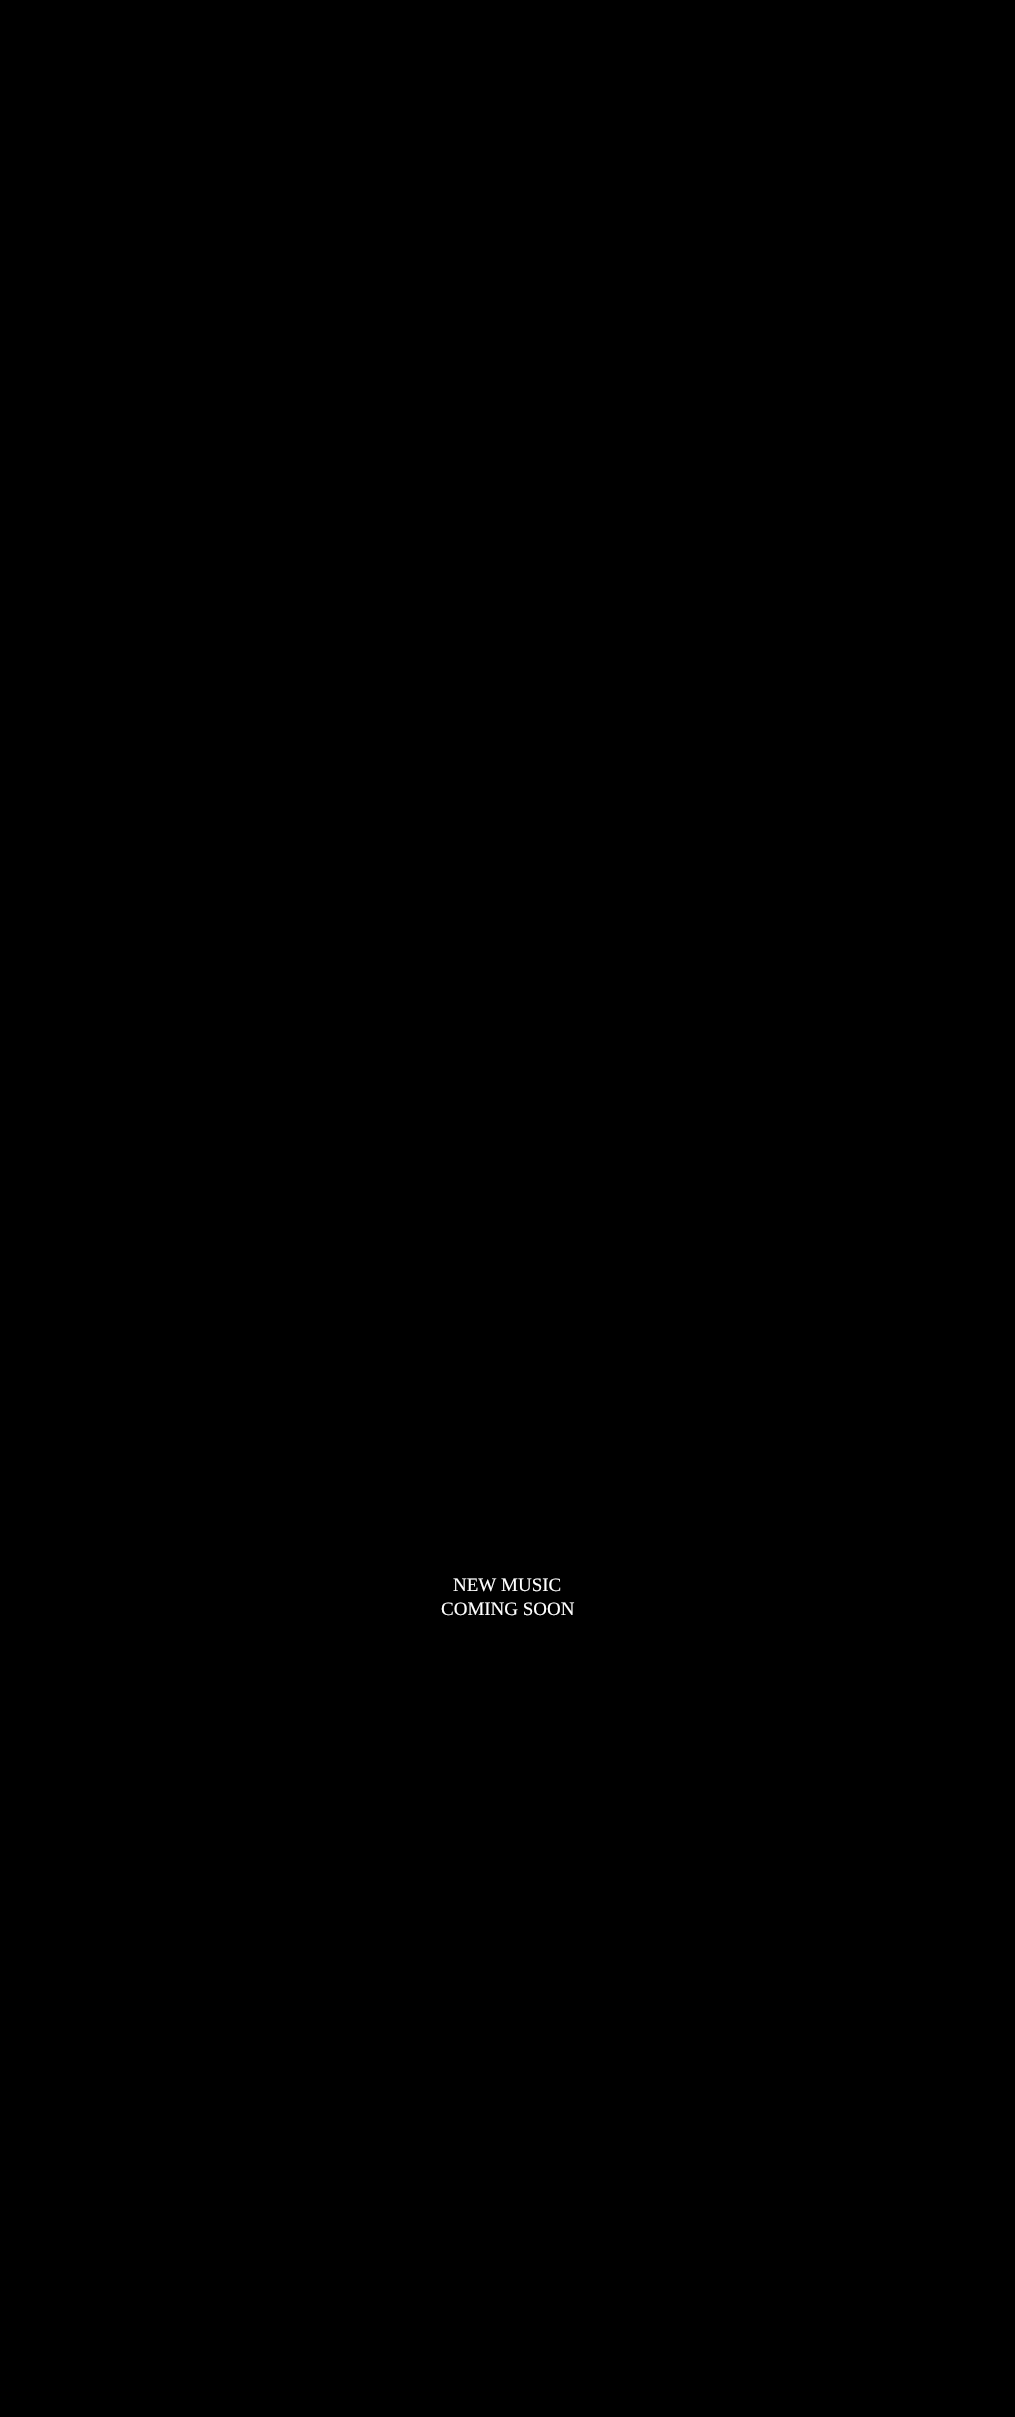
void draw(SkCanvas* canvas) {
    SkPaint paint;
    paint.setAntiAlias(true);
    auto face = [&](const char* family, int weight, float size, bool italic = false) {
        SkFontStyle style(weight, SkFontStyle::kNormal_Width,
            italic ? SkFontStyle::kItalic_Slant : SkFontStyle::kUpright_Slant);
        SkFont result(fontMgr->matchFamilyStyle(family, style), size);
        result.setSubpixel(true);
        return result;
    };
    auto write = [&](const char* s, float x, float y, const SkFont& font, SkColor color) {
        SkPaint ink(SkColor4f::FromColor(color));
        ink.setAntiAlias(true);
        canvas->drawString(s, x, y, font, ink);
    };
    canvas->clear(SK_ColorBLACK);
    auto kFont1 = face("Liberation Serif", 400, 19);
    write("NEW MUSIC", 453, 1591, kFont1, SK_ColorWHITE);
    write("COMING SOON", 441, 1615, kFont1, SK_ColorWHITE);
}
